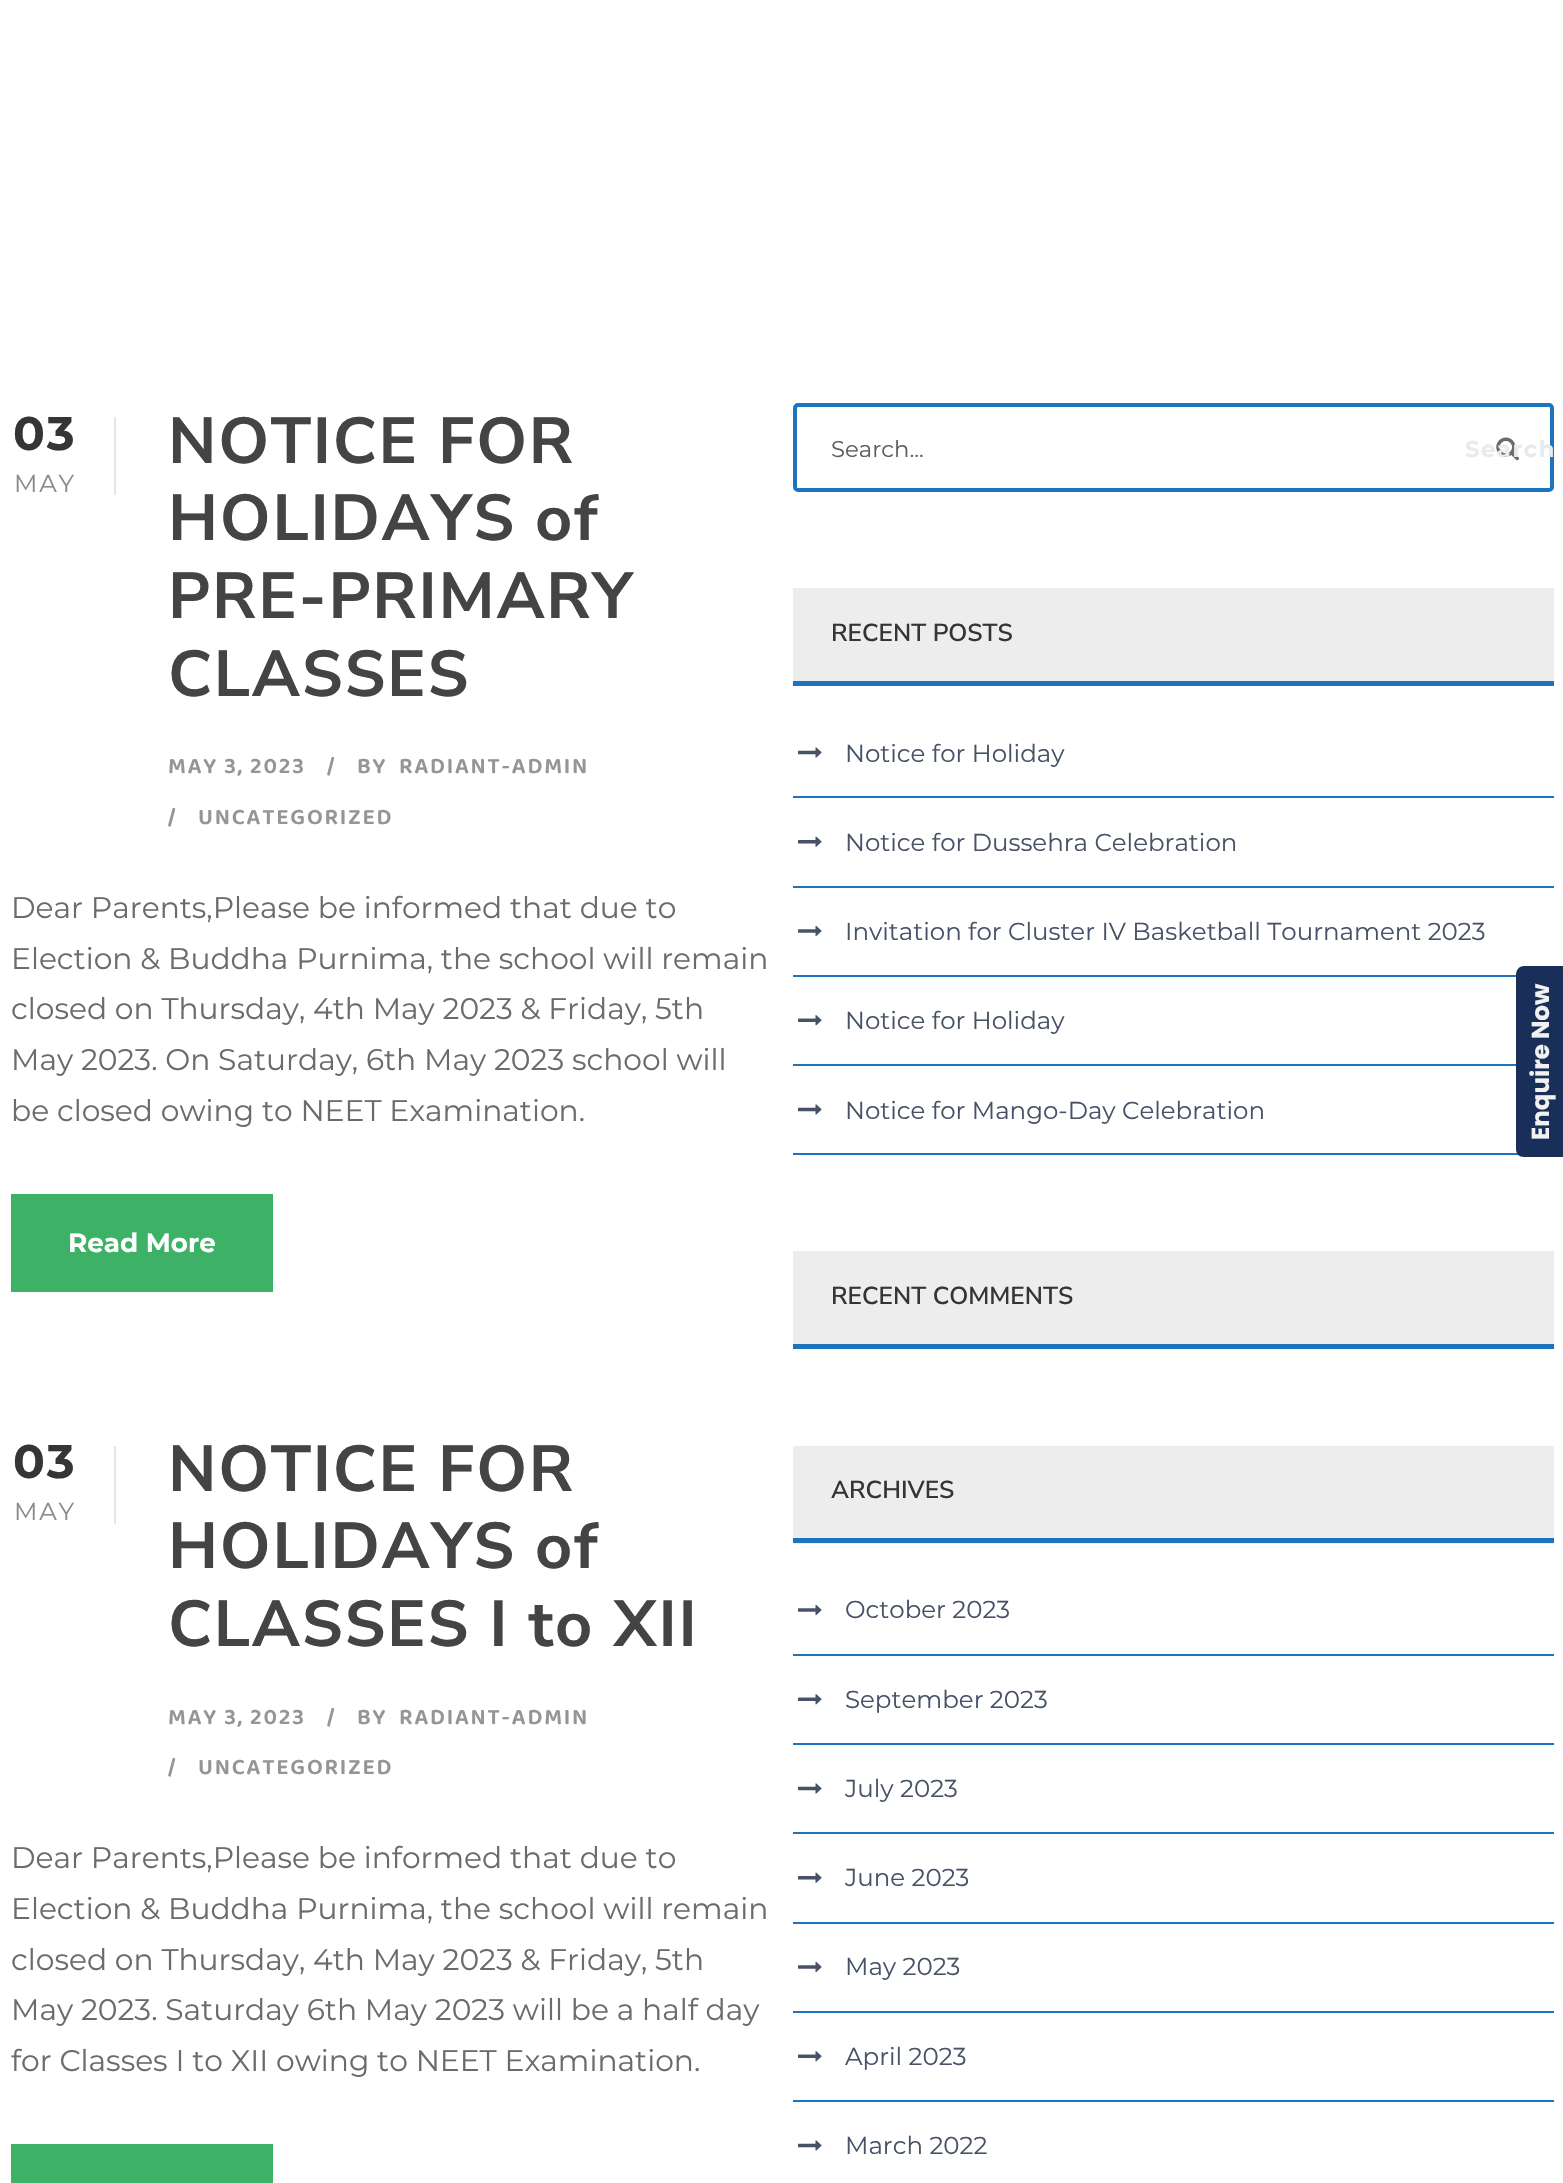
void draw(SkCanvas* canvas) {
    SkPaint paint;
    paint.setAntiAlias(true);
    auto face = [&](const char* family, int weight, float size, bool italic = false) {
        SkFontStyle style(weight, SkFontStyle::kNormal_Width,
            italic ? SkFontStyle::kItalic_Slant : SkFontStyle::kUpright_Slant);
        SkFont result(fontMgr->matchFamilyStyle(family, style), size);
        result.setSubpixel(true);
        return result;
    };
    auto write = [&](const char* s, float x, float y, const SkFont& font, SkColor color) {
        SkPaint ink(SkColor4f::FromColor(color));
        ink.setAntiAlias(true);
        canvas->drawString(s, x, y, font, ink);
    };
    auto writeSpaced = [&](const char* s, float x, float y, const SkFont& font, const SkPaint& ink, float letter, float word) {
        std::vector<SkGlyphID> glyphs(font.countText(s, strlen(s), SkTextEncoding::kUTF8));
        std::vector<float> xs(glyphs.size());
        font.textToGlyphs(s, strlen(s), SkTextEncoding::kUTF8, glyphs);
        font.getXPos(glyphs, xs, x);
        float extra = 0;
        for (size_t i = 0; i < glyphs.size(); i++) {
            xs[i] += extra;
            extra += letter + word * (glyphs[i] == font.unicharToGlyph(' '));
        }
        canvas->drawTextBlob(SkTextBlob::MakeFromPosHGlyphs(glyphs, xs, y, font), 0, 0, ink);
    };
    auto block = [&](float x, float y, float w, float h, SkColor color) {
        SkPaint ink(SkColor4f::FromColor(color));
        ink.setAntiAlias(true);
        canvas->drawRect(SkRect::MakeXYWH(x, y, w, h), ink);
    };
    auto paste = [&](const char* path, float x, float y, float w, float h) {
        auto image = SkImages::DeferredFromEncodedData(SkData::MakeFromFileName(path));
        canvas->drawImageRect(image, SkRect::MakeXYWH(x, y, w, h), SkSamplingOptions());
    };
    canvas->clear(SK_ColorWHITE);
    block(114, 417, 2, 78, SkColorSetRGB(230, 230, 230));
    auto kFont1 = face("Montserrat", 700, 47);
    paint.setColor(SkColorSetRGB(53, 53, 53));
    writeSpaced("03", 13, 450, kFont1, paint, 1.75f, 0);
    auto kFont2 = face("Montserrat", 400, 24.5f);
    paint.setColor(SkColorSetRGB(138, 138, 138));
    writeSpaced("MAY", 14, 492, kFont2, paint, 1.75f, 0);
    auto kFont3 = face("Nunito Sans", 700, 64.75f);
    paint.setColor(SkColorSetRGB(68, 68, 68));
    writeSpaced("NOTICE FOR", 168, 463, kFont3, paint, 1.75f, 0);
    writeSpaced("HOLIDAYS of", 168, 540, kFont3, paint, 1.75f, 0);
    writeSpaced("PRE-PRIMARY", 168, 618, kFont3, paint, 1.75f, 0);
    writeSpaced("CLASSES", 168, 696, kFont3, paint, 1.75f, 0);
    auto kFont4 = face("Baloo Thambi 2", 600, 22.75f);
    paint.setColor(SkColorSetRGB(149, 149, 149));
    writeSpaced("MAY 3, 2023", 168, 773, kFont4, paint, 1.75f, 0);
    writeSpaced("/", 327, 773, kFont4, paint, 1.75f, 0);
    writeSpaced("BY", 357, 773, kFont4, paint, 1.75f, 0);
    writeSpaced("RADIANT-ADMIN", 399, 773, kFont4, paint, 1.75f, 0);
    writeSpaced("/", 168, 824, kFont4, paint, 1.75f, 0);
    writeSpaced("UNCATEGORIZED", 198, 824, kFont4, paint, 1.75f, 0);
    auto kFont5 = face("Montserrat", 400, 29.75f);
    write("Dear Parents,Please be informed that due to", 11, 918, kFont5, SkColorSetRGB(107, 107, 107));
    write("Election & Buddha Purnima, the school will remain", 11, 969, kFont5, SkColorSetRGB(107, 107, 107));
    write("closed on Thursday, 4th May 2023 & Friday, 5th", 11, 1019, kFont5, SkColorSetRGB(107, 107, 107));
    write("May 2023. On Saturday, 6th May 2023 school will", 11, 1070, kFont5, SkColorSetRGB(107, 107, 107));
    write("be closed owing to NEET Examination.", 11, 1121, kFont5, SkColorSetRGB(107, 107, 107));
    block(11, 1194, 262, 98, SkColorSetRGB(61, 177, 102));
    auto kFont6 = face("Montserrat", 700, 26.25f);
    write("Read More", 68, 1252, kFont6, SK_ColorWHITE);
    block(114, 1446, 2, 78, SkColorSetRGB(230, 230, 230));
    paint.setColor(SkColorSetRGB(53, 53, 53));
    writeSpaced("03", 13, 1478, kFont1, paint, 1.75f, 0);
    paint.setColor(SkColorSetRGB(138, 138, 138));
    writeSpaced("MAY", 14, 1520, kFont2, paint, 1.75f, 0);
    paint.setColor(SkColorSetRGB(68, 68, 68));
    writeSpaced("NOTICE FOR", 168, 1491, kFont3, paint, 1.75f, 0);
    writeSpaced("HOLIDAYS of", 168, 1568, kFont3, paint, 1.75f, 0);
    writeSpaced("CLASSES I to XII", 168, 1646, kFont3, paint, 1.75f, 0);
    paint.setColor(SkColorSetRGB(149, 149, 149));
    writeSpaced("MAY 3, 2023", 168, 1724, kFont4, paint, 1.75f, 0);
    writeSpaced("/", 327, 1724, kFont4, paint, 1.75f, 0);
    writeSpaced("BY", 357, 1724, kFont4, paint, 1.75f, 0);
    writeSpaced("RADIANT-ADMIN", 399, 1724, kFont4, paint, 1.75f, 0);
    writeSpaced("/", 168, 1774, kFont4, paint, 1.75f, 0);
    writeSpaced("UNCATEGORIZED", 198, 1774, kFont4, paint, 1.75f, 0);
    write("Dear Parents,Please be informed that due to", 11, 1868, kFont5, SkColorSetRGB(107, 107, 107));
    write("Election & Buddha Purnima, the school will remain", 11, 1919, kFont5, SkColorSetRGB(107, 107, 107));
    write("closed on Thursday, 4th May 2023 & Friday, 5th", 11, 1970, kFont5, SkColorSetRGB(107, 107, 107));
    write("May 2023. Saturday 6th May 2023 will be a half day", 11, 2020, kFont5, SkColorSetRGB(107, 107, 107));
    write("for Classes I to XII owing to NEET Examination.", 11, 2071, kFont5, SkColorSetRGB(107, 107, 107));
    block(11, 2144, 262, 39, SkColorSetRGB(61, 177, 102));
    paint.setStyle(SkPaint::kStroke_Style);
    paint.setStrokeWidth(4);
    paint.setColor(SkColorSetRGB(30, 115, 190));
    canvas->drawRoundRect(SkRect::MakeXYWH(795, 405, 757, 85), 3, 3, paint);
    auto kFont7 = face("Montserrat", 400, 22.75f);
    write("Search...", 831, 457, kFont7, SkColorSetRGB(94, 94, 94));
    paste("pic1.png", 1496, 437, 23, 24);
    auto kFont8 = face("Montserrat", 700, 22.75f);
    paint.setStyle(SkPaint::kFill_Style);
    paint.setColor(SkColorSetRGB(231, 235, 238));
    writeSpaced("Search", 1465, 457, kFont8, paint, 1.5f, 0);
    block(793, 588, 761, 93, SkColorSetRGB(237, 237, 237));
    block(793, 681, 761, 5, SkColorSetRGB(30, 115, 190));
    auto kFont9 = face("Nunito Sans", 600, 24.5f);
    write("RECENT POSTS", 831, 641, kFont9, SkColorSetRGB(53, 53, 53));
    block(793, 796, 761, 2, SkColorSetRGB(30, 115, 190));
    paste("pic2.png", 798, 747, 24, 11);
    write("Notice for Holiday", 845, 762, kFont2, SkColorSetRGB(71, 82, 103));
    block(793, 886, 761, 2, SkColorSetRGB(30, 115, 190));
    paste("pic3.png", 798, 836, 24, 11);
    write("Notice for Dussehra Celebration", 845, 851, kFont2, SkColorSetRGB(71, 82, 103));
    block(793, 975, 723, 2, SkColorSetRGB(30, 115, 190));
    paste("pic4.png", 798, 925, 24, 12);
    write("Invitation for Cluster IV Basketball Tournament 2023", 845, 940, kFont2, SkColorSetRGB(71, 82, 103));
    block(793, 1064, 723, 2, SkColorSetRGB(30, 115, 190));
    paste("pic5.png", 798, 1015, 24, 11);
    write("Notice for Holiday", 845, 1029, kFont2, SkColorSetRGB(71, 82, 103));
    block(793, 1153, 726, 2, SkColorSetRGB(30, 115, 190));
    paste("pic2.png", 798, 1104, 24, 11);
    write("Notice for Mango-Day Celebration", 845, 1119, kFont2, SkColorSetRGB(71, 82, 103));
    block(793, 1251, 761, 93, SkColorSetRGB(237, 237, 237));
    block(793, 1344, 761, 5, SkColorSetRGB(30, 115, 190));
    write("RECENT COMMENTS", 831, 1304, kFont9, SkColorSetRGB(53, 53, 53));
    block(793, 1446, 761, 98, SkColorSetRGB(237, 237, 237));
    block(793, 1538, 761, 5, SkColorSetRGB(30, 115, 190));
    write("ARCHIVES", 831, 1498, kFont9, SkColorSetRGB(53, 53, 53));
    block(793, 1654, 761, 2, SkColorSetRGB(30, 115, 190));
    paste("pic4.png", 798, 1604, 24, 12);
    write("October 2023", 845, 1618, kFont2, SkColorSetRGB(71, 82, 103));
    block(793, 1743, 761, 2, SkColorSetRGB(30, 115, 190));
    paste("pic5.png", 798, 1694, 24, 11);
    write("September 2023", 845, 1708, kFont2, SkColorSetRGB(71, 82, 103));
    block(793, 1832, 761, 2, SkColorSetRGB(30, 115, 190));
    paste("pic2.png", 798, 1783, 24, 11);
    write("July 2023", 845, 1797, kFont2, SkColorSetRGB(71, 82, 103));
    block(793, 1922, 761, 2, SkColorSetRGB(30, 115, 190));
    paste("pic3.png", 798, 1872, 24, 11);
    write("June 2023", 845, 1886, kFont2, SkColorSetRGB(71, 82, 103));
    block(793, 2011, 761, 2, SkColorSetRGB(30, 115, 190));
    paste("pic4.png", 798, 1961, 24, 12);
    write("May 2023", 845, 1975, kFont2, SkColorSetRGB(71, 82, 103));
    block(793, 2100, 761, 2, SkColorSetRGB(30, 115, 190));
    paste("pic5.png", 798, 2051, 24, 11);
    write("April 2023", 845, 2065, kFont2, SkColorSetRGB(71, 82, 103));
    paste("pic2.png", 798, 2140, 24, 11);
    write("March 2022", 845, 2154, kFont2, SkColorSetRGB(71, 82, 103));
    paint.setColor(SkColorSetRGB(25, 47, 89));
    canvas->drawPath(SkPathBuilder().moveTo(1516, 1149).lineTo(1516, 975).cubicTo(1516, 970, 1519, 966, 1524, 966).lineTo(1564, 966).lineTo(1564, 1157).lineTo(1524, 1157).cubicTo(1519, 1157, 1516, 1154, 1516, 1149).close().detach(), paint);
    auto kFont10 = face("Poppins", 700, 24.5f);
    canvas->save();
    canvas->rotate(-90, 1549, 1140);
    write("Enquire Now", 1549, 1140, kFont10, SkColorSetRGB(241, 241, 241));
    canvas->restore();
}
